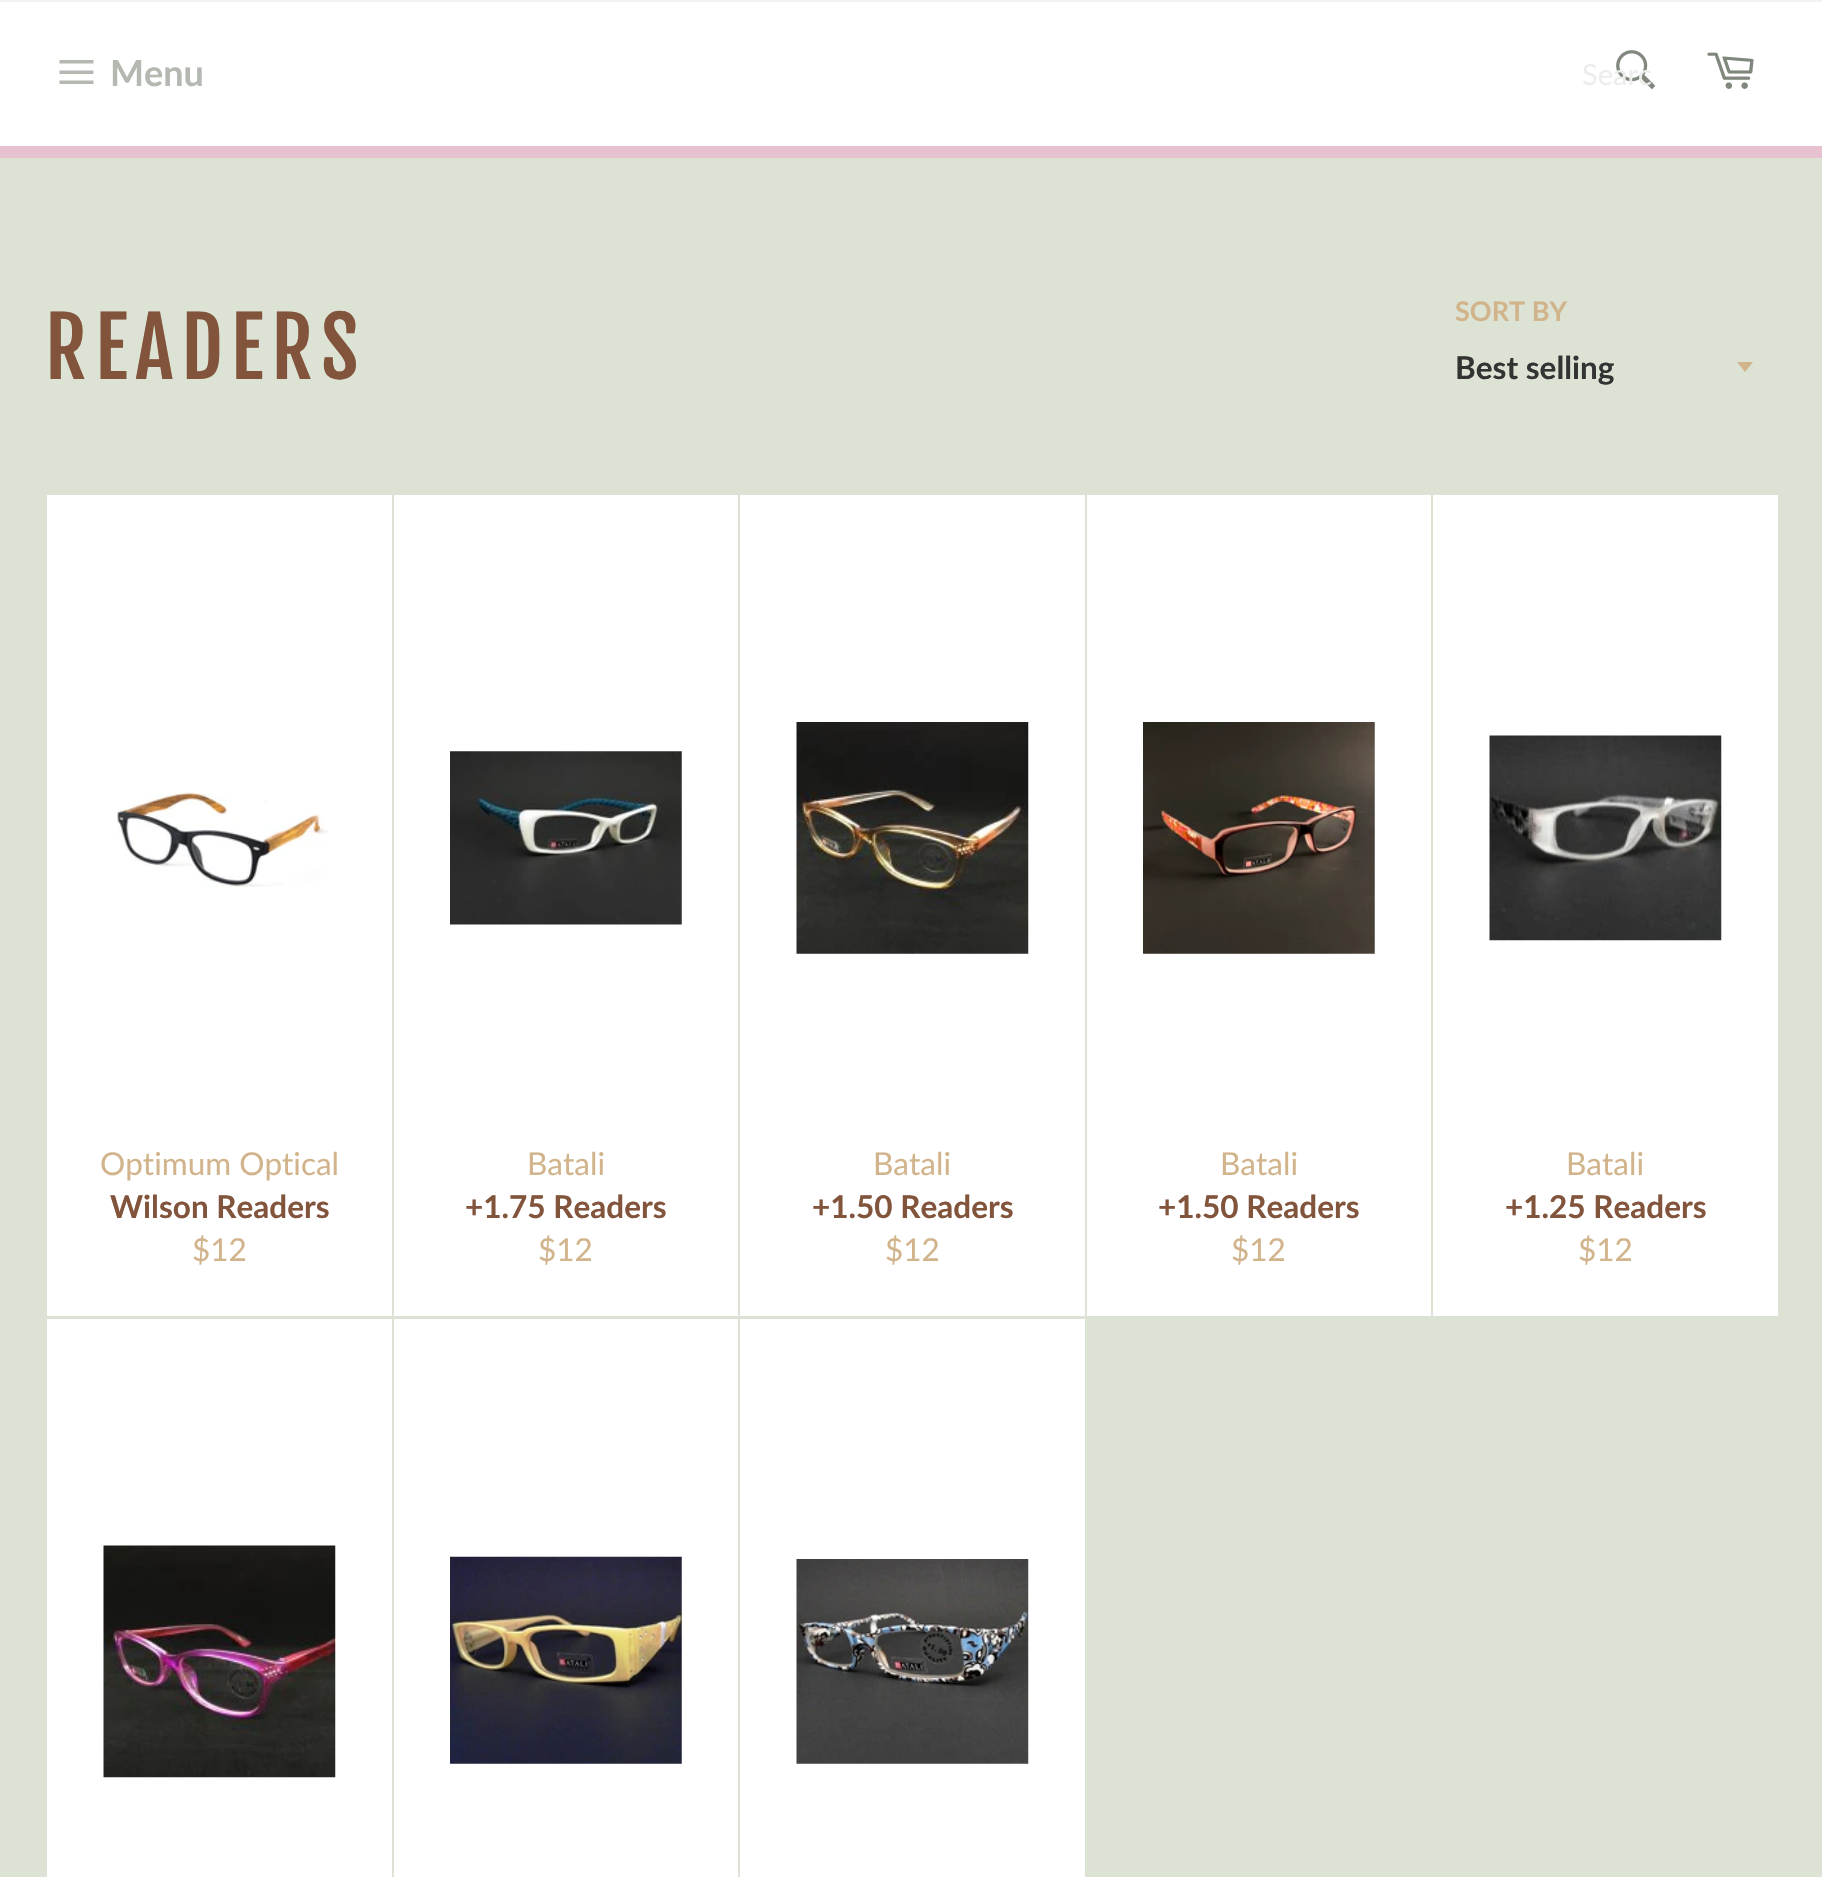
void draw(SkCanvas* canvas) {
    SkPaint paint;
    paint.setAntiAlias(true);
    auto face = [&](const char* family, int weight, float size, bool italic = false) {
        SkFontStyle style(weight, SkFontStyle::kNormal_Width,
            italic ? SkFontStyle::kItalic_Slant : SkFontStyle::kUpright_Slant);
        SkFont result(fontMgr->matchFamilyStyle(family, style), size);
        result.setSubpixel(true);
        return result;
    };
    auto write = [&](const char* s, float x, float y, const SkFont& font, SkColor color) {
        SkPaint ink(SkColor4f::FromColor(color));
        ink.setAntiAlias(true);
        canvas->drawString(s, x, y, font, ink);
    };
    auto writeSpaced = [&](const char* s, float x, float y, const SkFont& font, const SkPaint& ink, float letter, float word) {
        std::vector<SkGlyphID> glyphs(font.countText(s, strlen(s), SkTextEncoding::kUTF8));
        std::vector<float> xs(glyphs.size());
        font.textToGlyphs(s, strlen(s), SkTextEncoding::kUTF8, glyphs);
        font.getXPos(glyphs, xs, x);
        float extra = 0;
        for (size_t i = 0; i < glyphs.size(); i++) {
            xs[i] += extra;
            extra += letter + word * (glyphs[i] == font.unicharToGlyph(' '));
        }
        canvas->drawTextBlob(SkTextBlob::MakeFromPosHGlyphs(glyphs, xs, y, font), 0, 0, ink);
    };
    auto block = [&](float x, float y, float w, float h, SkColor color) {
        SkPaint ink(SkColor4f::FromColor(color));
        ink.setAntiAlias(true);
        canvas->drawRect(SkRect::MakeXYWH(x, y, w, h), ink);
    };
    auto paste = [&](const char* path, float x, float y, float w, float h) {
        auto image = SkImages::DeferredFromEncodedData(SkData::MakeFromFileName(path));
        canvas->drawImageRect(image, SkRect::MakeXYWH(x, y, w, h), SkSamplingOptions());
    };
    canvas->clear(SkColorSetRGB(220, 227, 212));
    block(0, 2, 1822, 144, SK_ColorWHITE);
    block(0, 0, 1822, 2, SkColorSetRGB(242, 242, 242));
    paint.setColor(SkColorSetRGB(179, 184, 177));
    canvas->drawPath(SkPathBuilder().moveTo(59.5f, 70.5f).lineTo(93.5f, 70.5f).lineTo(93.5f, 74).lineTo(59.5f, 74).close().moveTo(59.5f, 60).lineTo(93.5f, 60).lineTo(93.5f, 63.5f).lineTo(59.5f, 63.5f).close().moveTo(59.5f, 80.5f).lineTo(93.5f, 80.5f).lineTo(93.5f, 84).lineTo(59.5f, 84).close().detach(), paint);
    auto kFont1 = face("Lato", 700, 36);
    write("Menu", 110, 86, kFont1, SkColorSetRGB(179, 184, 177));
    paste("pic1.png", 1616, 50, 40, 40);
    auto kFont2 = face("Lato", 400, 29);
    write("Searc", 1582, 85, kFont2, SkColorSetRGB(236, 237, 236));
    paste("pic2.png", 1707, 52, 47, 37);
    block(0, 146, 1822, 12, SkColorSetRGB(232, 193, 209));
    auto kFont3 = face("Fjalla One", 400, 81);
    paint.setColor(SkColorSetRGB(129, 84, 59));
    writeSpaced("READERS", 45, 379, kFont3, paint, 8, 0);
    auto kFont4 = face("Lato", 700, 27);
    write("SORT BY", 1455, 321, kFont4, SkColorSetRGB(210, 180, 140));
    paint.setColor(SkColorSetRGB(210, 180, 140));
    canvas->drawPath(SkPathBuilder().moveTo(1737, 362).lineTo(1745, 372).lineTo(1753, 362).close().detach(), paint);
    auto kFont5 = face("Lato", 700, 31.5f);
    write("Best selling", 1455, 379, kFont5, SkColorSetRGB(51, 51, 51));
    block(47, 495, 345, 821, SK_ColorWHITE);
    paste("pic3.png", 117, 792, 212, 95);
    auto kFont6 = face("Lato", 400, 31.5f);
    write("Optimum Optical", 100, 1175, kFont6, SkColorSetRGB(210, 180, 140));
    write("Wilson Readers", 110, 1218, kFont5, SkColorSetRGB(129, 84, 59));
    write("$12", 192, 1261, kFont6, SkColorSetRGB(210, 180, 140));
    block(394, 495, 344, 821, SK_ColorWHITE);
    paste("pic4.png", 450, 751, 232, 174);
    write("Batali", 527, 1175, kFont6, SkColorSetRGB(210, 180, 140));
    write("+1.75 Readers", 465, 1218, kFont5, SkColorSetRGB(129, 84, 59));
    write("$12", 538, 1261, kFont6, SkColorSetRGB(210, 180, 140));
    block(740, 495, 345, 821, SK_ColorWHITE);
    paste("pic5.png", 796, 722, 233, 232);
    write("Batali", 873, 1175, kFont6, SkColorSetRGB(210, 180, 140));
    write("+1.50 Readers", 812, 1218, kFont5, SkColorSetRGB(129, 84, 59));
    write("$12", 885, 1261, kFont6, SkColorSetRGB(210, 180, 140));
    block(1087, 495, 344, 821, SK_ColorWHITE);
    paste("pic6.png", 1143, 722, 232, 232);
    write("Batali", 1220, 1175, kFont6, SkColorSetRGB(210, 180, 140));
    write("+1.50 Readers", 1158, 1218, kFont5, SkColorSetRGB(129, 84, 59));
    write("$12", 1231, 1261, kFont6, SkColorSetRGB(210, 180, 140));
    block(1433, 495, 345, 821, SK_ColorWHITE);
    paste("pic7.png", 1489, 735, 233, 206);
    write("Batali", 1566, 1175, kFont6, SkColorSetRGB(210, 180, 140));
    write("+1.25 Readers", 1505, 1218, kFont5, SkColorSetRGB(129, 84, 59));
    write("$12", 1578, 1261, kFont6, SkColorSetRGB(210, 180, 140));
    block(47, 1319, 345, 558, SK_ColorWHITE);
    paste("pic8.png", 103, 1545, 233, 233);
    block(394, 1319, 344, 558, SK_ColorWHITE);
    paste("pic9.png", 450, 1556, 232, 208);
    block(740, 1319, 345, 558, SK_ColorWHITE);
    paste("pic10.png", 796, 1559, 233, 205);
}
